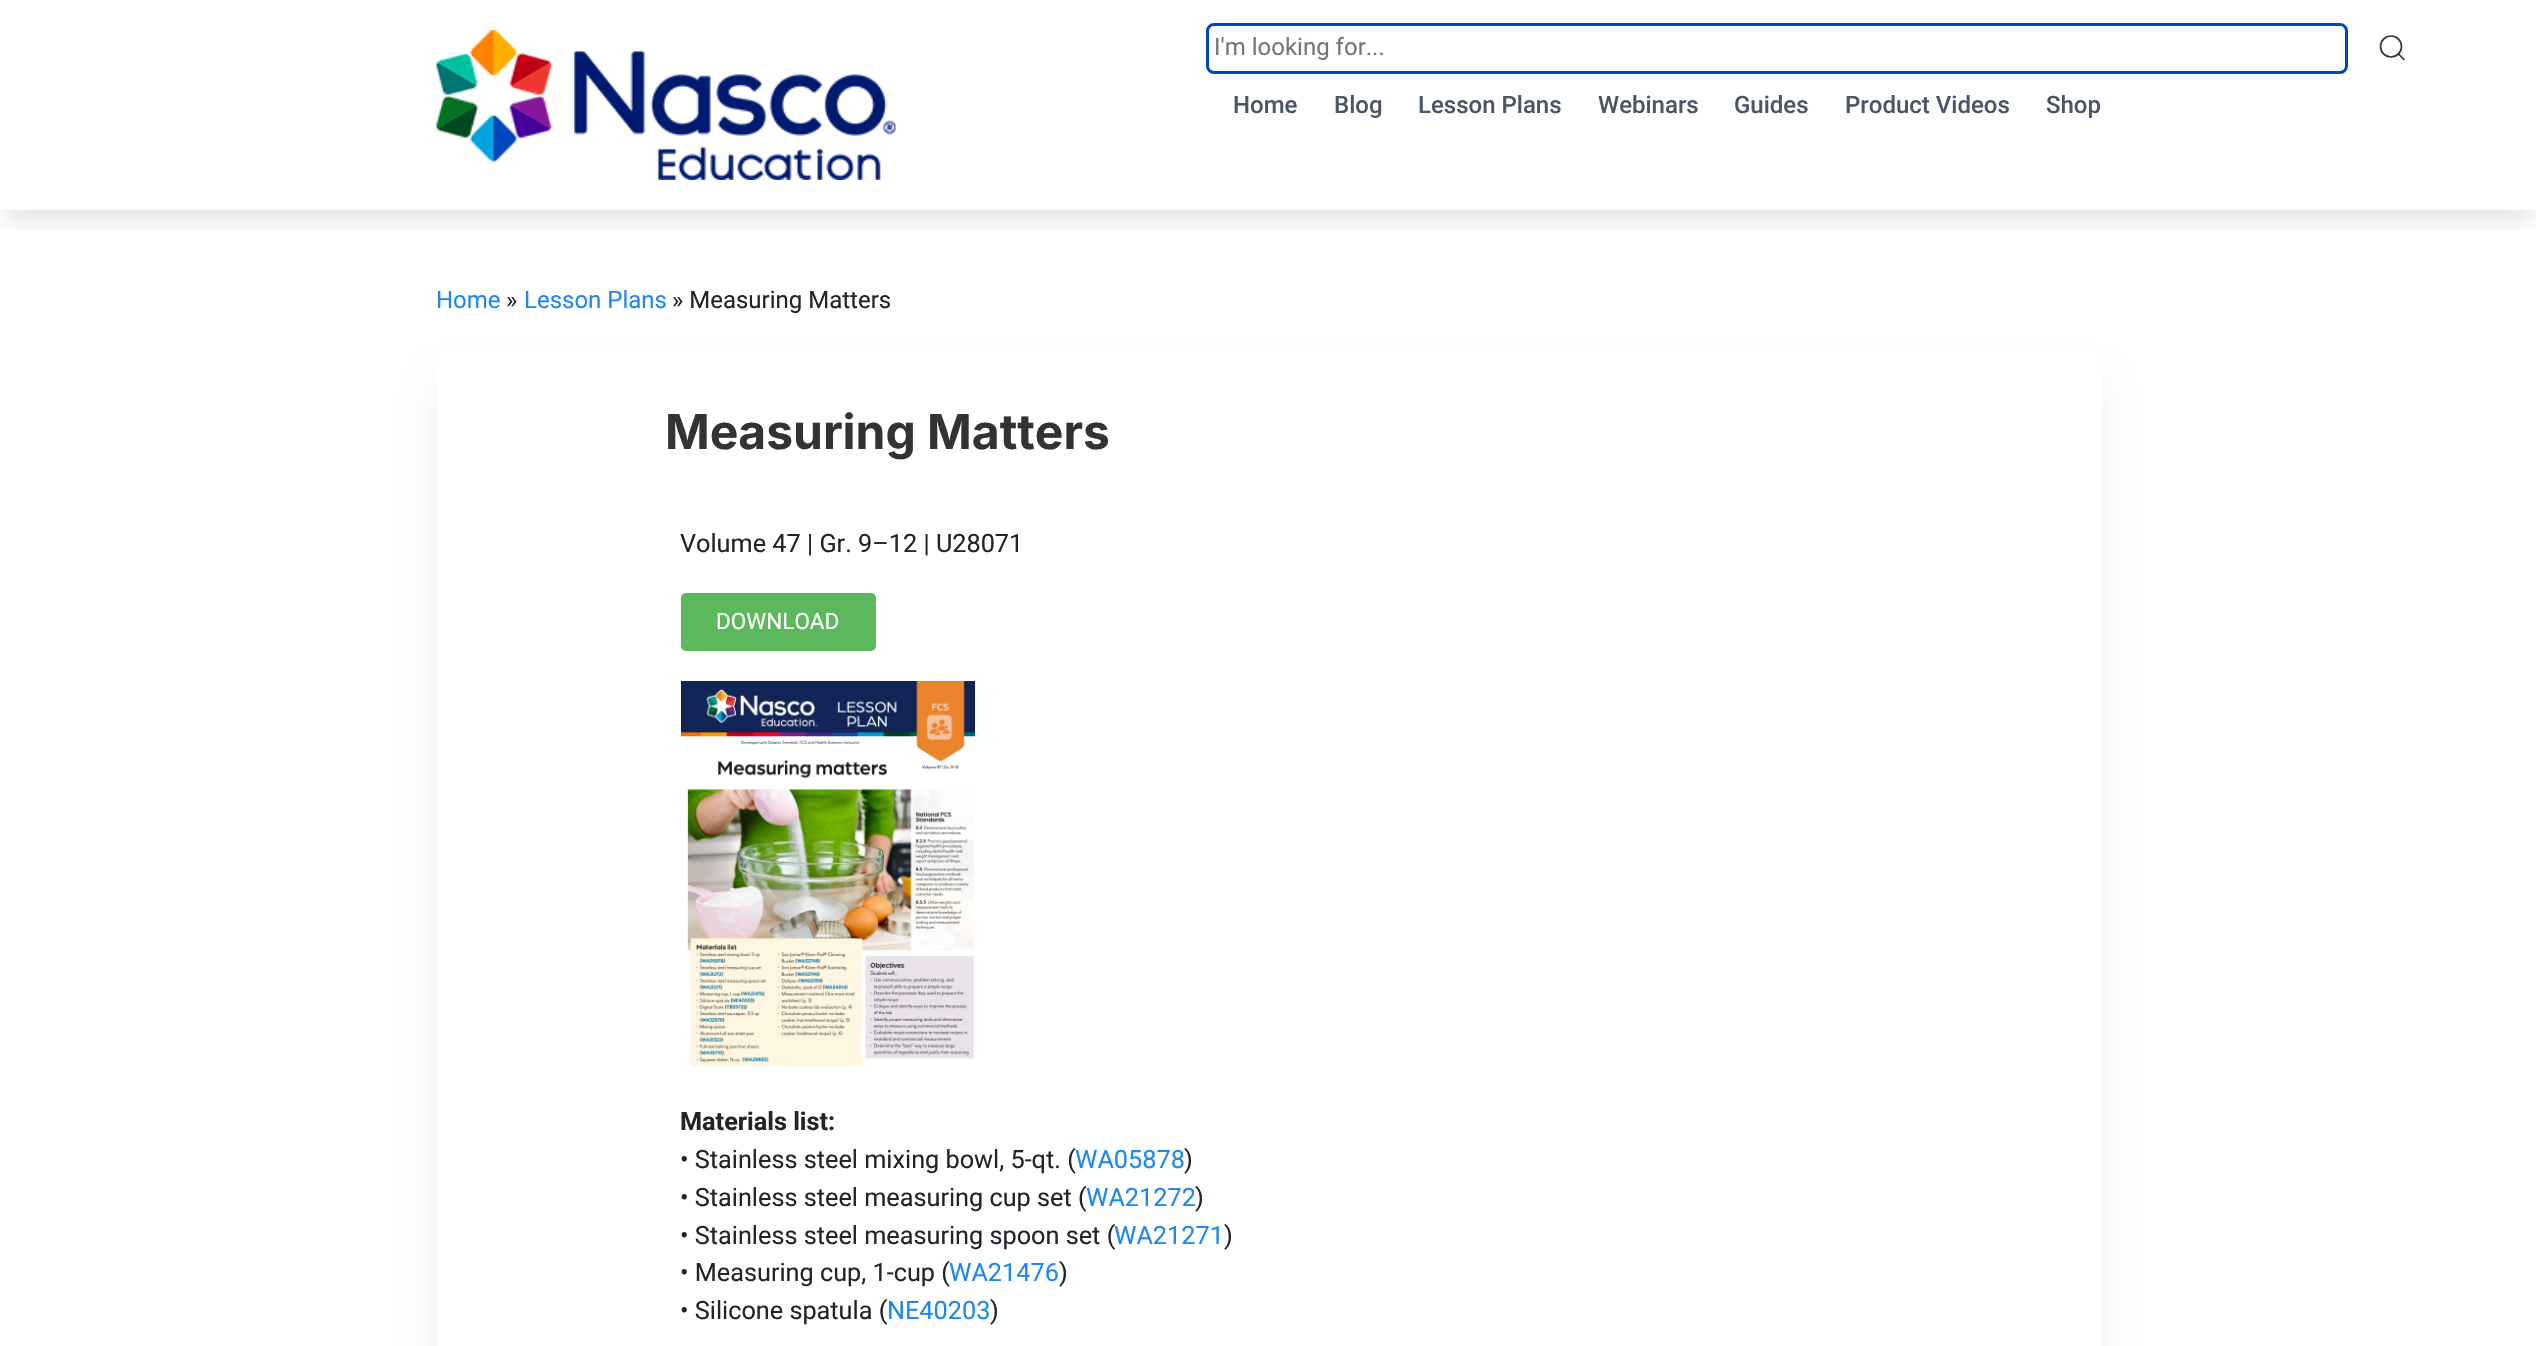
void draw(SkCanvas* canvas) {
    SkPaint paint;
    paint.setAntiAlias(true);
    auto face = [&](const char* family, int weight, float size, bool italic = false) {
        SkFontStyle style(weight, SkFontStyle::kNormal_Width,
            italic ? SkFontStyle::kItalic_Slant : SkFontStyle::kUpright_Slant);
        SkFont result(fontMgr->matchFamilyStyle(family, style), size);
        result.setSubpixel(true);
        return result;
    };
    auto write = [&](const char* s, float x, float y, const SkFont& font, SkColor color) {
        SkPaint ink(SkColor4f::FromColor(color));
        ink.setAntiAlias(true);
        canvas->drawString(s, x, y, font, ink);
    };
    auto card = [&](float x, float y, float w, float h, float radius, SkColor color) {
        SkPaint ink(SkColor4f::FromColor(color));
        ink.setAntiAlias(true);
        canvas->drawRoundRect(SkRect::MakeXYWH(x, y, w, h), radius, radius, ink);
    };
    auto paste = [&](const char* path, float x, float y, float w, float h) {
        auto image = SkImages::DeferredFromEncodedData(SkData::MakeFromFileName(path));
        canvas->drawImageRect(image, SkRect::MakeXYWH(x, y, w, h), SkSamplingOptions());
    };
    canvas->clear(SK_ColorWHITE);
    canvas->save();
    canvas->clipRect(SkRect::MakeXYWH(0, 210, 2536, 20));
    paint.setColor(SkColorSetARGB(26, 0, 0, 0));
    paint.setMaskFilter(SkMaskFilter::MakeBlur(kNormal_SkBlurStyle, 11));
    canvas->drawRect(SkRect::MakeXYWH(5, 20, 2527, 201), paint);
    paint.setMaskFilter(nullptr);
    canvas->restore();
    paint.setStyle(SkPaint::kStroke_Style);
    paint.setStrokeWidth(3);
    paint.setColor(SkColorSetRGB(0, 71, 187));
    canvas->drawRoundRect(SkRect::MakeXYWH(1207.5f, 24.5f, 1139, 48), 6.5f, 6.5f, paint);
    auto kFont1 = face("Roboto", 400, 24);
    write("I'm looking for...", 1214, 55, kFont1, SkColorSetRGB(117, 117, 117));
    paint.setStrokeWidth(1.7f);
    paint.setColor(SkColorSetRGB(51, 51, 51));
    canvas->drawCircle(2391, 46.5f, 10.5f, paint);
    paint.setColor(SkColorSetARGB(204, 0, 0, 0));
    canvas->drawPath(SkPathBuilder().moveTo(2398.5f, 54).lineTo(2404.5f, 60).close().detach(), paint);
    paste("pic1.png", 436, 30, 460, 150);
    auto kFont2 = face("Roboto", 500, 24);
    write("Home", 1233, 113, kFont2, SkColorSetRGB(74, 85, 104));
    write("Blog", 1334, 113, kFont2, SkColorSetRGB(74, 85, 104));
    write("Lesson Plans", 1418, 113, kFont2, SkColorSetRGB(74, 85, 104));
    write("Webinars", 1598, 113, kFont2, SkColorSetRGB(74, 85, 104));
    write("Guides", 1734, 113, kFont2, SkColorSetRGB(74, 85, 104));
    write("Product Videos", 1845, 113, kFont2, SkColorSetRGB(74, 85, 104));
    write("Shop", 2046, 113, kFont2, SkColorSetRGB(74, 85, 104));
    write("Home", 436, 308, kFont1, SkColorSetRGB(30, 135, 240));
    write("»", 506, 308, kFont1, SkColorSetRGB(33, 37, 41));
    write("Lesson Plans", 524, 308, kFont1, SkColorSetRGB(30, 135, 240));
    write("» Measuring Matters", 672, 308, kFont1, SkColorSetRGB(33, 37, 41));
    paint.setStyle(SkPaint::kFill_Style);
    paint.setColor(SkColorSetARGB(26, 0, 0, 0));
    paint.setMaskFilter(SkMaskFilter::MakeBlur(kNormal_SkBlurStyle, 19));
    canvas->drawRoundRect(SkRect::MakeXYWH(444, 386, 1650, 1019), 1.5f, 1.5f, paint);
    paint.setMaskFilter(nullptr);
    card(437, 348, 1665, 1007, 9, SK_ColorWHITE);
    auto kFont3 = face("Inter", 700, 48);
    write("Measuring Matters", 665, 449, kFont3, SkColorSetRGB(51, 51, 51));
    auto kFont4 = face("Roboto", 400, 25.25f);
    write("Volume 47 | Gr. 9–12 | U28071", 680, 552, kFont4, SkColorSetRGB(33, 37, 41));
    card(681, 593, 195, 58, 5, SkColorSetRGB(92, 184, 92));
    auto kFont5 = face("Roboto", 400, 22.5f);
    write("DOWNLOAD", 716, 629, kFont5, SK_ColorWHITE);
    paste("pic2.png", 681, 681, 294, 386);
    auto kFont6 = face("Roboto", 700, 25.25f);
    write("Materials list:", 680, 1130, kFont6, SkColorSetRGB(33, 37, 41));
    write("• Stainless steel mixing bowl, 5-qt. (", 680, 1168, kFont4, SkColorSetRGB(33, 37, 41));
    write("WA05878", 1075, 1168, kFont4, SkColorSetRGB(30, 135, 240));
    write(")", 1184, 1168, kFont4, SkColorSetRGB(33, 37, 41));
    write("• Stainless steel measuring cup set (", 680, 1206, kFont4, SkColorSetRGB(33, 37, 41));
    write("WA21272", 1086, 1206, kFont4, SkColorSetRGB(30, 135, 240));
    write(")", 1195, 1206, kFont4, SkColorSetRGB(33, 37, 41));
    write("• Stainless steel measuring spoon set (", 680, 1244, kFont4, SkColorSetRGB(33, 37, 41));
    write("WA21271", 1114, 1244, kFont4, SkColorSetRGB(30, 135, 240));
    write(")", 1224, 1244, kFont4, SkColorSetRGB(33, 37, 41));
    write("• Measuring cup, 1-cup (", 680, 1281, kFont4, SkColorSetRGB(33, 37, 41));
    write("WA21476", 949, 1281, kFont4, SkColorSetRGB(30, 135, 240));
    write(")", 1059, 1281, kFont4, SkColorSetRGB(33, 37, 41));
    write("• Silicone spatula (", 680, 1319, kFont4, SkColorSetRGB(33, 37, 41));
    write("NE40203", 887, 1319, kFont4, SkColorSetRGB(30, 135, 240));
    write(")", 990, 1319, kFont4, SkColorSetRGB(33, 37, 41));
}
